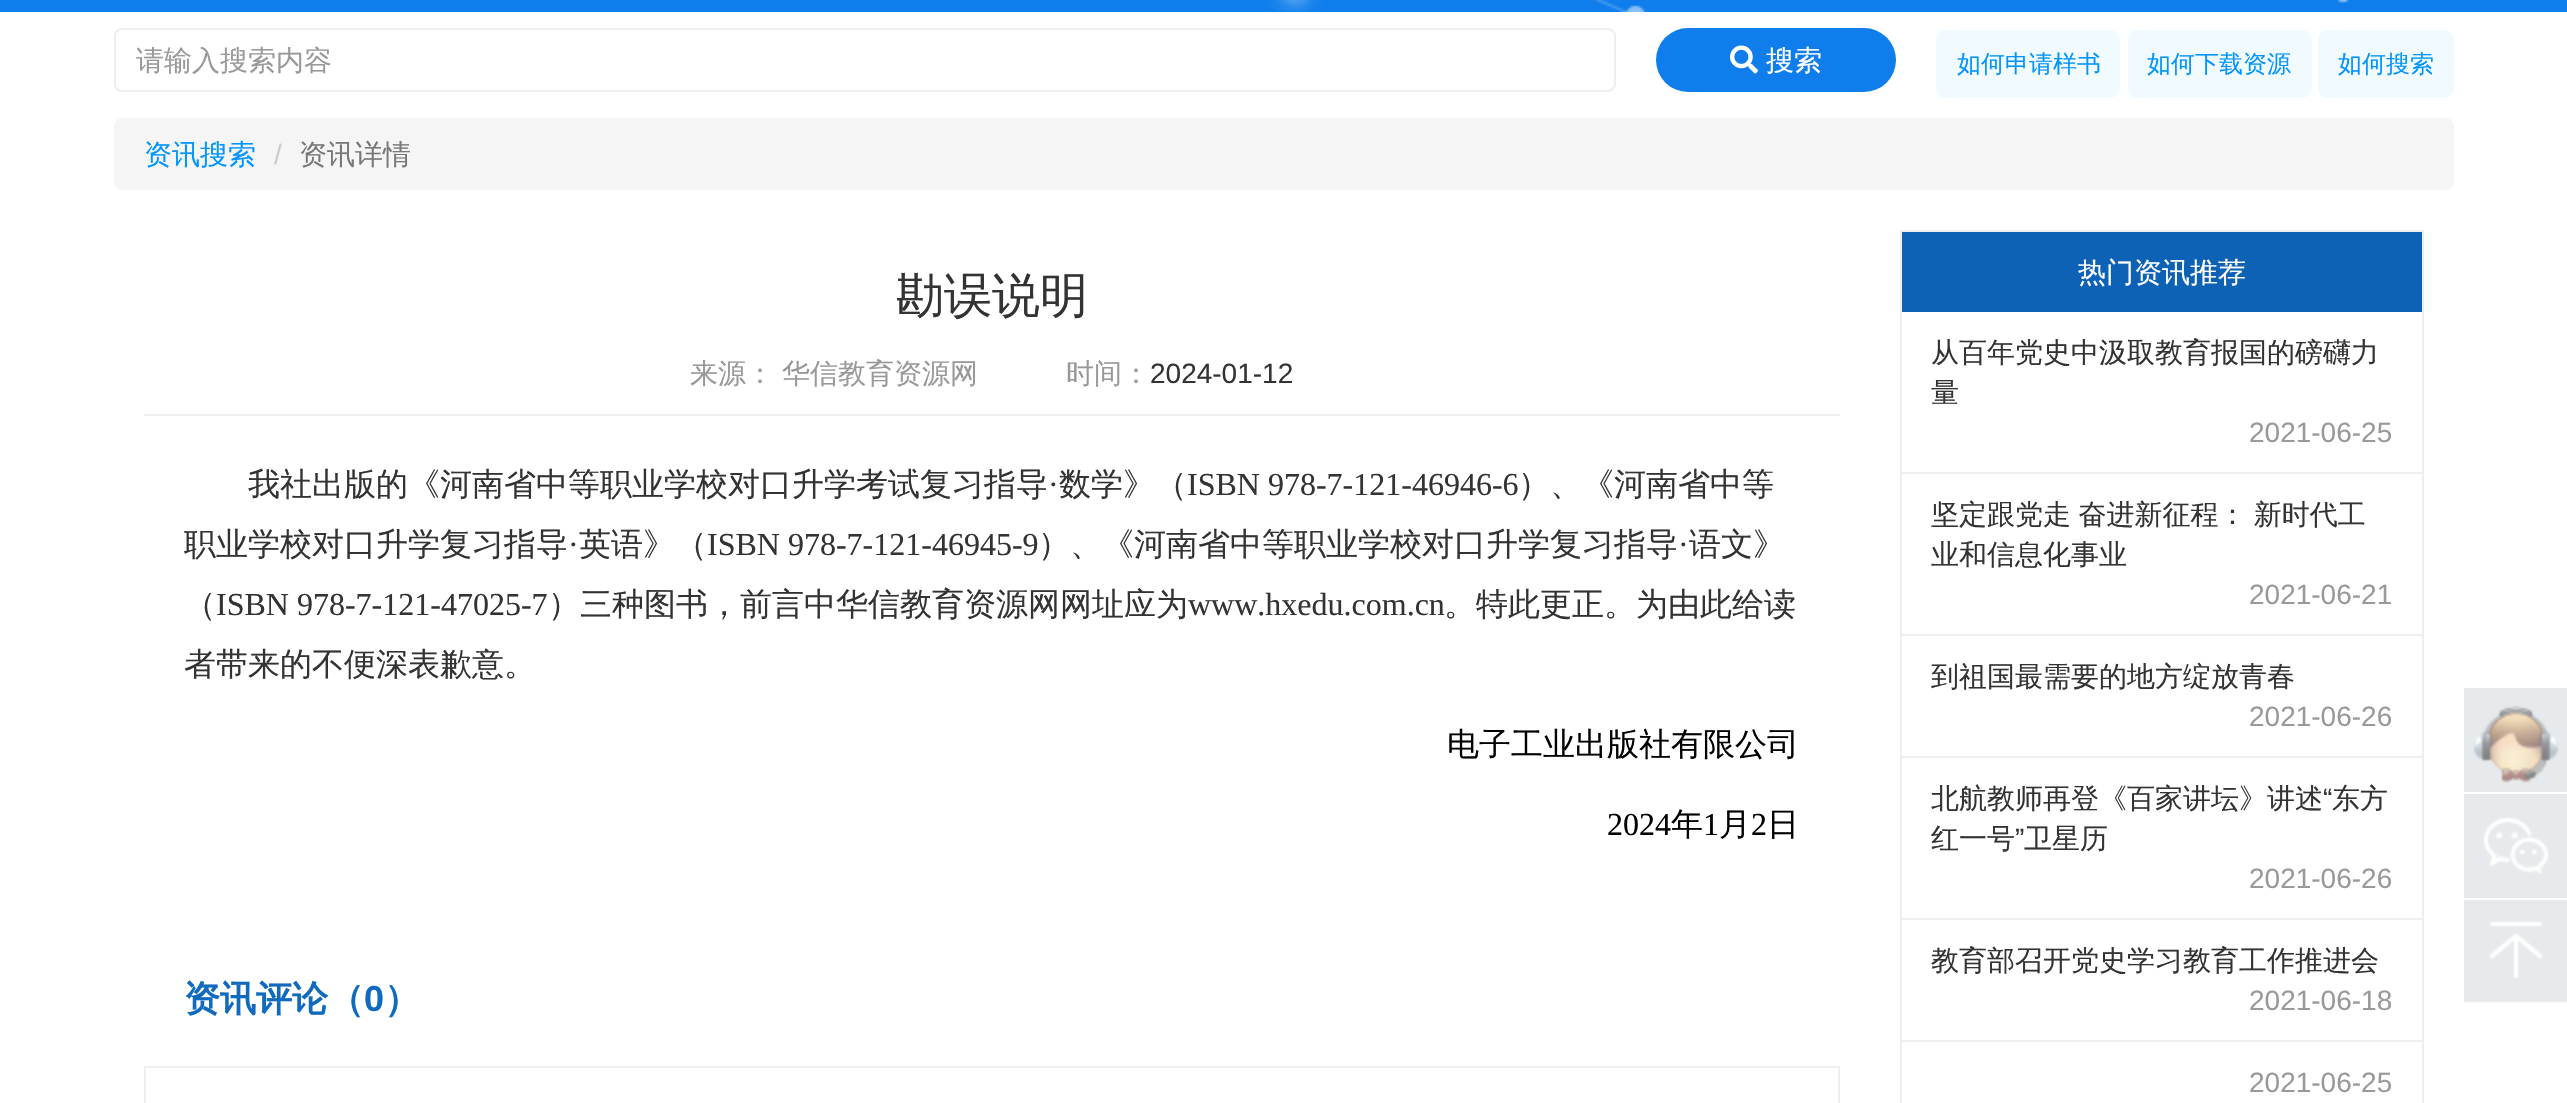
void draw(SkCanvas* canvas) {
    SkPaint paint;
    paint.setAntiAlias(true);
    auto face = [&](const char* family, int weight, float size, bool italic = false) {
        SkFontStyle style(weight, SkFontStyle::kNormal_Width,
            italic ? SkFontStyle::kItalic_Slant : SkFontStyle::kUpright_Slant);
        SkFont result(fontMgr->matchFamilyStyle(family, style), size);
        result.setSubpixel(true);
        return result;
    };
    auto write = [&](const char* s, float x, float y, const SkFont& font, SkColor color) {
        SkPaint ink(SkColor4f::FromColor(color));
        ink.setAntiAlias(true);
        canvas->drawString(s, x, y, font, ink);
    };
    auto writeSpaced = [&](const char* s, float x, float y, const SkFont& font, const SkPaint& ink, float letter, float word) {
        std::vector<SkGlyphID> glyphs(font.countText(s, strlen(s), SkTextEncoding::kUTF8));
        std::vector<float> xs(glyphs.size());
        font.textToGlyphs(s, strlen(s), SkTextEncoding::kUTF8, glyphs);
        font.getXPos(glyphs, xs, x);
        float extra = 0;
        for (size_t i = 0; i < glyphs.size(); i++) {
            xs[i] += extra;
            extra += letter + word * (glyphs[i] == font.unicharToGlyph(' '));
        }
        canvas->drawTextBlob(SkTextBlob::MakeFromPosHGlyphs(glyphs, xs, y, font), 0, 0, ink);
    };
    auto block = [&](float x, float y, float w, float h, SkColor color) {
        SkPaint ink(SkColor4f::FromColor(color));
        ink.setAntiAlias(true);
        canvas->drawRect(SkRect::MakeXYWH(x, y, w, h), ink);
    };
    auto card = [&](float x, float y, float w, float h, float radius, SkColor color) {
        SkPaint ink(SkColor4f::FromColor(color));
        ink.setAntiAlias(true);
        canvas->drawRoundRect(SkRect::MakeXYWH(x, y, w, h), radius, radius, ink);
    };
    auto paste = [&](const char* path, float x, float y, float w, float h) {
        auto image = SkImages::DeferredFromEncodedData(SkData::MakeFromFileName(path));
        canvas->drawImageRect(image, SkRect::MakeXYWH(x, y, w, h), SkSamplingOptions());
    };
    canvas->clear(SK_ColorWHITE);
    block(0, 0, 2567, 12, SkColorSetRGB(15, 126, 236));
    paste("pic1.png", 1592, 0, 757, 12);
    paint.setColor(SK_ColorWHITE);
    paint.setMaskFilter(SkMaskFilter::MakeBlur(kNormal_SkBlurStyle, 10));
    canvas->drawRoundRect(SkRect::MakeXYWH(1286, -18, 18, 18), 9, 9, paint);
    paint.setMaskFilter(nullptr);
    paint.setStyle(SkPaint::kStroke_Style);
    paint.setStrokeWidth(2);
    paint.setColor(SkColorSetRGB(238, 238, 238));
    canvas->drawRoundRect(SkRect::MakeXYWH(115, 29, 1500, 62), 7, 7, paint);
    auto kFont1 = face("WenQuanYi Zen Hei", 500, 28);
    write("请输入搜索内容", 136, 70, kFont1, SkColorSetRGB(153, 153, 153));
    card(1656, 28, 240, 64, 32, SkColorSetRGB(15, 126, 236));
    paste("pic2.png", 1730, 45, 28, 29);
    write("搜索", 1766, 70, kFont1, SK_ColorWHITE);
    card(1936, 30, 184, 68, 10, SkColorSetRGB(241, 251, 255));
    auto kFont2 = face("WenQuanYi Zen Hei", 500, 24);
    write("如何申请样书", 1957, 72, kFont2, SkColorSetRGB(2, 148, 255));
    card(2128, 30, 184, 68, 10, SkColorSetRGB(241, 251, 255));
    write("如何下载资源", 2147, 72, kFont2, SkColorSetRGB(2, 148, 255));
    card(2318, 30, 136, 68, 10, SkColorSetRGB(241, 251, 255));
    write("如何搜索", 2338, 72, kFont2, SkColorSetRGB(2, 148, 255));
    card(114, 118, 2340, 72, 8, SkColorSetRGB(245, 245, 245));
    write("资讯搜索", 144, 164, kFont1, SkColorSetRGB(2, 148, 255));
    auto kFont3 = face("Liberation Sans", 400, 28);
    write("/", 274, 164, kFont3, SkColorSetRGB(204, 204, 204));
    write("资讯详情", 299, 164, kFont1, SkColorSetRGB(119, 119, 119));
    block(144, 414, 1696, 2, SkColorSetRGB(238, 238, 238));
    auto kFont4 = face("WenQuanYi Zen Hei", 500, 48);
    write("勘误说明", 896, 312, kFont4, SkColorSetRGB(51, 51, 51));
    write("来源：", 690, 383, kFont1, SkColorSetRGB(153, 153, 153));
    write("华信教育资源网", 782, 383, kFont1, SkColorSetRGB(153, 153, 153));
    write("时间：", 1066, 383, kFont1, SkColorSetRGB(153, 153, 153));
    write("2024-01-12", 1150, 383, kFont3, SkColorSetRGB(51, 51, 51));
    auto kFont5 = face("WenQuanYi Zen Hei", 500, 32);
    write("我社出版的《河南省中等职业学校对口升学考试复习指导", 248, 495, kFont5, SkColorSetRGB(51, 51, 51));
    auto kFont6 = face("Liberation Serif", 400, 32);
    write("·", 1048, 495, kFont6, SkColorSetRGB(51, 51, 51));
    write("数学》（", 1059, 495, kFont5, SkColorSetRGB(51, 51, 51));
    write("ISBN 978-7-121-46946-6", 1187, 495, kFont6, SkColorSetRGB(51, 51, 51));
    write("）、《河南省中等", 1518, 495, kFont5, SkColorSetRGB(51, 51, 51));
    write("职业学校对口升学复习指导", 184, 555, kFont5, SkColorSetRGB(51, 51, 51));
    write("·", 568, 555, kFont6, SkColorSetRGB(51, 51, 51));
    write("英语》（", 579, 555, kFont5, SkColorSetRGB(51, 51, 51));
    write("ISBN 978-7-121-46945-9", 707, 555, kFont6, SkColorSetRGB(51, 51, 51));
    write("）、《河南省中等职业学校对口升学复习指导", 1038, 555, kFont5, SkColorSetRGB(51, 51, 51));
    write("·", 1678, 555, kFont6, SkColorSetRGB(51, 51, 51));
    write("语文》", 1689, 555, kFont5, SkColorSetRGB(51, 51, 51));
    write("（", 184, 615, kFont5, SkColorSetRGB(51, 51, 51));
    write("ISBN 978-7-121-47025-7", 216, 615, kFont6, SkColorSetRGB(51, 51, 51));
    write("）三种图书，前言中华信教育资源网网址应为", 548, 615, kFont5, SkColorSetRGB(51, 51, 51));
    write("www.hxedu.com.cn", 1188, 615, kFont6, SkColorSetRGB(51, 51, 51));
    write("。特此更正。为由此给读", 1444, 615, kFont5, SkColorSetRGB(51, 51, 51));
    write("者带来的不便深表歉意。", 184, 675, kFont5, SkColorSetRGB(51, 51, 51));
    write("电子工业出版社有限公司", 1447, 755, kFont5, SK_ColorBLACK);
    write("2024", 1607, 835, kFont6, SK_ColorBLACK);
    write("年", 1671, 835, kFont5, SK_ColorBLACK);
    write("1", 1703, 835, kFont6, SK_ColorBLACK);
    write("月", 1719, 835, kFont5, SK_ColorBLACK);
    write("2", 1751, 835, kFont6, SK_ColorBLACK);
    write("日", 1767, 835, kFont5, SK_ColorBLACK);
    auto kFont7 = face("WenQuanYi Zen Hei", 700, 36);
    write("资讯评论（", 184, 1011, kFont7, SkColorSetRGB(16, 106, 190));
    auto kFont8 = face("Liberation Sans", 700, 36);
    write("0", 364, 1011, kFont8, SkColorSetRGB(16, 106, 190));
    write("）", 384, 1011, kFont7, SkColorSetRGB(16, 106, 190));
    canvas->drawRect(SkRect::MakeXYWH(145, 1067, 1694, 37), paint);
    canvas->drawRect(SkRect::MakeXYWH(1901, 231, 522, 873), paint);
    block(1902, 232, 520, 80, SkColorSetRGB(14, 98, 181));
    write("热门资讯推荐", 2078, 282, kFont1, SK_ColorWHITE);
    block(1902, 472, 520, 2, SkColorSetRGB(238, 238, 238));
    write("从百年党史中汲取教育报国的磅礴力", 1931, 362, kFont1, SkColorSetRGB(51, 51, 51));
    write("量", 1931, 402, kFont1, SkColorSetRGB(51, 51, 51));
    write("2021-06-25", 2249, 442, kFont3, SkColorSetRGB(153, 153, 153));
    block(1902, 634, 520, 2, SkColorSetRGB(238, 238, 238));
    paint.setStyle(SkPaint::kFill_Style);
    paint.setColor(SkColorSetRGB(51, 51, 51));
    writeSpaced("坚定跟党走 奋进新征程： 新时代工", 1931, 524, kFont1, paint, 0, -1);
    write("业和信息化事业", 1931, 564, kFont1, SkColorSetRGB(51, 51, 51));
    write("2021-06-21", 2249, 604, kFont3, SkColorSetRGB(153, 153, 153));
    block(1902, 756, 520, 2, SkColorSetRGB(238, 238, 238));
    write("到祖国最需要的地方绽放青春", 1931, 686, kFont1, SkColorSetRGB(51, 51, 51));
    write("2021-06-26", 2249, 726, kFont3, SkColorSetRGB(153, 153, 153));
    block(1902, 918, 520, 2, SkColorSetRGB(238, 238, 238));
    write("北航教师再登《百家讲坛》讲述", 1931, 808, kFont1, SkColorSetRGB(51, 51, 51));
    write("“", 2323, 808, kFont3, SkColorSetRGB(51, 51, 51));
    write("东方", 2332, 808, kFont1, SkColorSetRGB(51, 51, 51));
    write("红一号", 1931, 848, kFont1, SkColorSetRGB(51, 51, 51));
    write("”", 2015, 848, kFont3, SkColorSetRGB(51, 51, 51));
    write("卫星历", 2024, 848, kFont1, SkColorSetRGB(51, 51, 51));
    write("2021-06-26", 2249, 888, kFont3, SkColorSetRGB(153, 153, 153));
    block(1902, 1040, 520, 2, SkColorSetRGB(238, 238, 238));
    write("教育部召开党史学习教育工作推进会", 1931, 970, kFont1, SkColorSetRGB(51, 51, 51));
    write("2021-06-18", 2249, 1010, kFont3, SkColorSetRGB(153, 153, 153));
    write("2021-06-25", 2249, 1092, kFont3, SkColorSetRGB(153, 153, 153));
    paste("pic3.png", 2464, 688, 103, 104);
    paste("pic4.png", 2464, 794, 103, 104);
    paste("pic5.png", 2464, 900, 103, 103);
}
